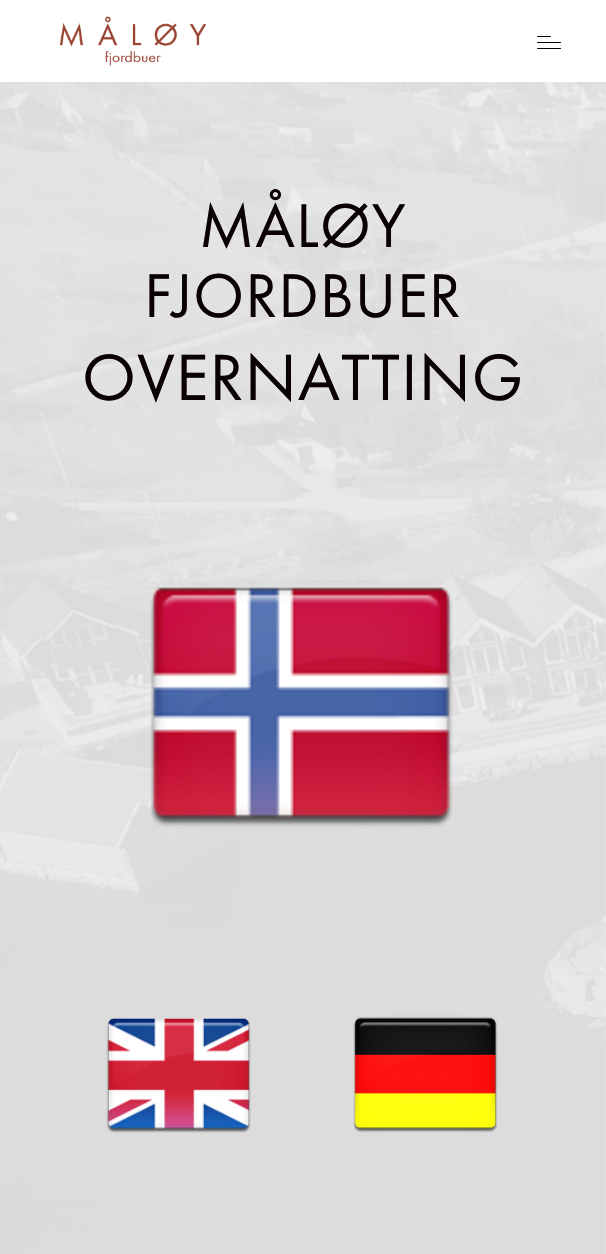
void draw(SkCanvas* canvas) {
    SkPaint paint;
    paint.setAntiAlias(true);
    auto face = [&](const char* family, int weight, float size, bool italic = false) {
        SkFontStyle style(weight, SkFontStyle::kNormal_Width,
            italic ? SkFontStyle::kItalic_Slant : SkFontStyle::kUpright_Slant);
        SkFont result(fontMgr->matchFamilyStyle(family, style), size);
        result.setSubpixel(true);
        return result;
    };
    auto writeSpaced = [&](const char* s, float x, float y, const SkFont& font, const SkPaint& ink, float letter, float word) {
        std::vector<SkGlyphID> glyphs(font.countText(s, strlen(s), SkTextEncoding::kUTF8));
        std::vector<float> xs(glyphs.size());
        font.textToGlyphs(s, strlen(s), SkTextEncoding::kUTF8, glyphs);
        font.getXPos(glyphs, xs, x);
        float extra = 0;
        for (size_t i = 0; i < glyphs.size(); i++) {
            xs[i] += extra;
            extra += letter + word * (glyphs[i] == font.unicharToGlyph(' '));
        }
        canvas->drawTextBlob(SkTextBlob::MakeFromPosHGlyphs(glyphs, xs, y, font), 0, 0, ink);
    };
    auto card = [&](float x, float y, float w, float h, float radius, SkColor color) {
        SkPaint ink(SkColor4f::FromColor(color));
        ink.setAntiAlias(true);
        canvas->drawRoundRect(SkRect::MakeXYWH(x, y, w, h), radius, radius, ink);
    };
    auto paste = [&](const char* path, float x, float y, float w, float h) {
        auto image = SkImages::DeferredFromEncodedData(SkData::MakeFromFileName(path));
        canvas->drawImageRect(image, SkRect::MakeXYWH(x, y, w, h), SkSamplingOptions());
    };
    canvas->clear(SK_ColorWHITE);
    paste("pic1.png", 59, 16, 148, 50);
    card(537, 42, 24, 1, 0.5f, SK_ColorBLACK);
    card(537, 36, 14, 1, 0.5f, SK_ColorBLACK);
    card(537, 48, 24, 1, 0.5f, SK_ColorBLACK);
    paste("pic2.png", 0, 82, 606, 1172);
    auto kFont1 = face("Futura PT", 400, 64);
    paint.setColor(SkColorSetRGB(10, 2, 2));
    writeSpaced("MÅLØY", 199, 247, kFont1, paint, 1, 0);
    writeSpaced("FJORDBUER", 144, 317, kFont1, paint, 1, 0);
    auto kFont2 = face("Futura PT", 400, 68);
    writeSpaced("OVERNATTING", 82, 400, kFont2, paint, 1, 0);
    paste("pic3.png", 150, 580, 303, 248);
    paste("pic4.png", 106, 1018, 145, 115);
    paste("pic5.png", 353, 1015, 145, 118);
}
